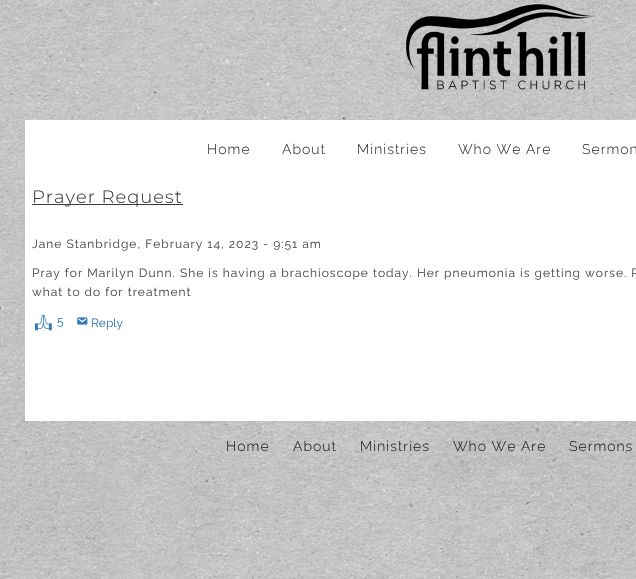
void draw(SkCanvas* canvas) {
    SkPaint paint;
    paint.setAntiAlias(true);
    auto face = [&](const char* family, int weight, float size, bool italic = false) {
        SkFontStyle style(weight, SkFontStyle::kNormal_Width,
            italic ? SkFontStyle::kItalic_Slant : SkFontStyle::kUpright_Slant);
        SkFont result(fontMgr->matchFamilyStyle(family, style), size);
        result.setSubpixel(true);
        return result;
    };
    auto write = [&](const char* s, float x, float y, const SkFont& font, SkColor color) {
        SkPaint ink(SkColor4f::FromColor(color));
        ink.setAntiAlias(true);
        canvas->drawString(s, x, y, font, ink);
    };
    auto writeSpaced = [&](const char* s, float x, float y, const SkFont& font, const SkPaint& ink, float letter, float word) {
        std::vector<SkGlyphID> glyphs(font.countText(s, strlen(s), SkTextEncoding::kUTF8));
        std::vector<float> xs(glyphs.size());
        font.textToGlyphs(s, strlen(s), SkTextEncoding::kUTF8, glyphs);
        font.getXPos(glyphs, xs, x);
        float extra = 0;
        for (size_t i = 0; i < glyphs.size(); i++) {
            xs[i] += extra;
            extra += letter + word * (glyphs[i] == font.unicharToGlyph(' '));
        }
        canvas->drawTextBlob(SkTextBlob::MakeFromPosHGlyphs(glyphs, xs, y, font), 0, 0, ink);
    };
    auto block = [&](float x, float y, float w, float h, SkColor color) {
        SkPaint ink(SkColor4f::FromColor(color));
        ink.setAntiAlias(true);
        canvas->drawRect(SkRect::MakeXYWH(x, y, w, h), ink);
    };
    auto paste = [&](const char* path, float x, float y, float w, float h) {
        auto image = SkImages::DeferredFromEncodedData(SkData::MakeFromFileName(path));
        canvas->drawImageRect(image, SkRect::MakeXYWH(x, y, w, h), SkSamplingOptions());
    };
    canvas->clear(SkColorSetRGB(227, 227, 227));
    paste("pic1.png", 0, 0, 636, 579);
    paste("pic2.png", 406, 4, 190, 86);
    block(25, 120, 611, 301, SK_ColorWHITE);
    auto kFont1 = face("Raleway", 300, 14);
    paint.setColor(SkColorSetRGB(54, 54, 54));
    writeSpaced("Home", 207, 154, kFont1, paint, 1, 0);
    writeSpaced("About", 282, 154, kFont1, paint, 1, 0);
    writeSpaced("Ministries", 357, 154, kFont1, paint, 1, 0);
    writeSpaced("Who We Are", 458, 154, kFont1, paint, 1, 0);
    writeSpaced("Sermon", 582, 154, kFont1, paint, 1, 0);
    block(32, 204, 151, 1, SkColorSetRGB(61, 61, 61));
    auto kFont2 = face("Montserrat", 300, 18);
    paint.setColor(SkColorSetRGB(61, 61, 61));
    writeSpaced("Prayer Request", 32, 203, kFont2, paint, 1, 0);
    auto kFont3 = face("Raleway", 400, 12);
    paint.setColor(SkColorSetRGB(79, 79, 79));
    writeSpaced("Jane Stanbridge, February 14, 2023 - 9:51 am", 32, 248, kFont3, paint, 1, 0);
    writeSpaced("Pray for Marilyn Dunn. She is having a brachioscope today. Her pneumonia is getting worse. P", 32, 277, kFont3, paint, 1, 0);
    writeSpaced("what to do for treatment", 32, 296, kFont3, paint, 1, 0);
    paste("pic3.png", 35, 314, 17, 17);
    write("5", 57, 325, kFont3, SkColorSetRGB(51, 122, 183));
    paste("pic4.png", 77, 317, 11, 8);
    write("Reply", 91, 327, kFont3, SkColorSetRGB(51, 122, 183));
    paint.setColor(SkColorSetRGB(36, 36, 36));
    writeSpaced("Home", 226, 451, kFont1, paint, 1, 0);
    writeSpaced("About", 293, 451, kFont1, paint, 1, 0);
    writeSpaced("Ministries", 360, 451, kFont1, paint, 1, 0);
    writeSpaced("Who We Are", 453, 451, kFont1, paint, 1, 0);
    writeSpaced("Sermons", 569, 451, kFont1, paint, 1, 0);
}
